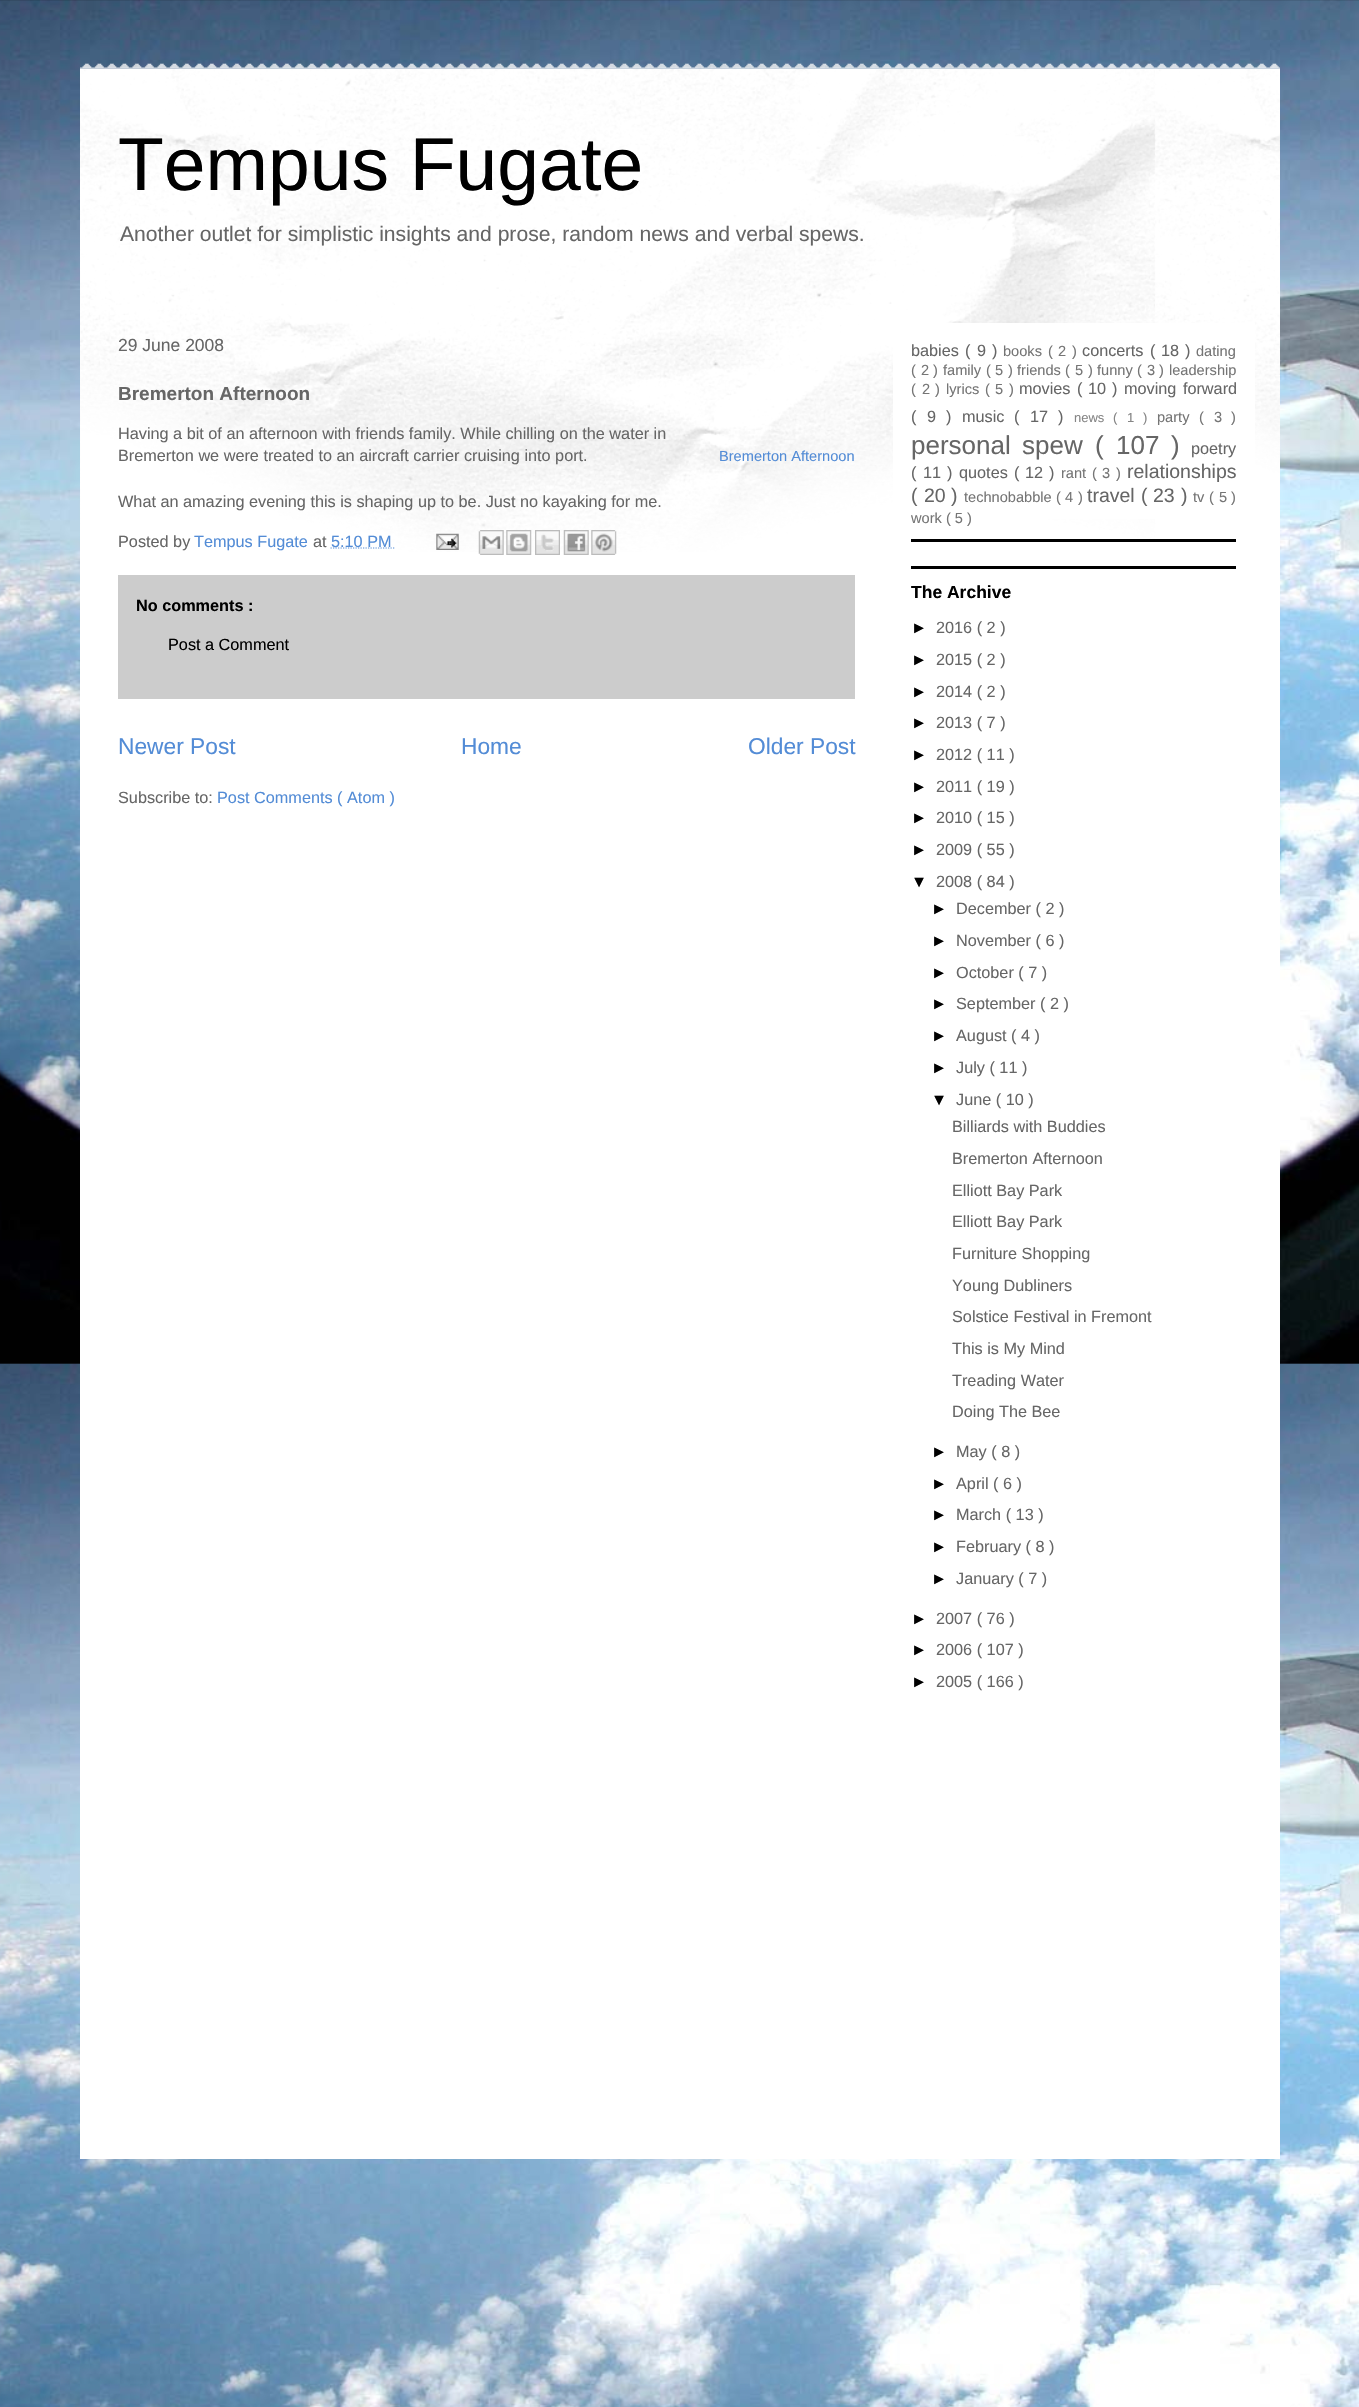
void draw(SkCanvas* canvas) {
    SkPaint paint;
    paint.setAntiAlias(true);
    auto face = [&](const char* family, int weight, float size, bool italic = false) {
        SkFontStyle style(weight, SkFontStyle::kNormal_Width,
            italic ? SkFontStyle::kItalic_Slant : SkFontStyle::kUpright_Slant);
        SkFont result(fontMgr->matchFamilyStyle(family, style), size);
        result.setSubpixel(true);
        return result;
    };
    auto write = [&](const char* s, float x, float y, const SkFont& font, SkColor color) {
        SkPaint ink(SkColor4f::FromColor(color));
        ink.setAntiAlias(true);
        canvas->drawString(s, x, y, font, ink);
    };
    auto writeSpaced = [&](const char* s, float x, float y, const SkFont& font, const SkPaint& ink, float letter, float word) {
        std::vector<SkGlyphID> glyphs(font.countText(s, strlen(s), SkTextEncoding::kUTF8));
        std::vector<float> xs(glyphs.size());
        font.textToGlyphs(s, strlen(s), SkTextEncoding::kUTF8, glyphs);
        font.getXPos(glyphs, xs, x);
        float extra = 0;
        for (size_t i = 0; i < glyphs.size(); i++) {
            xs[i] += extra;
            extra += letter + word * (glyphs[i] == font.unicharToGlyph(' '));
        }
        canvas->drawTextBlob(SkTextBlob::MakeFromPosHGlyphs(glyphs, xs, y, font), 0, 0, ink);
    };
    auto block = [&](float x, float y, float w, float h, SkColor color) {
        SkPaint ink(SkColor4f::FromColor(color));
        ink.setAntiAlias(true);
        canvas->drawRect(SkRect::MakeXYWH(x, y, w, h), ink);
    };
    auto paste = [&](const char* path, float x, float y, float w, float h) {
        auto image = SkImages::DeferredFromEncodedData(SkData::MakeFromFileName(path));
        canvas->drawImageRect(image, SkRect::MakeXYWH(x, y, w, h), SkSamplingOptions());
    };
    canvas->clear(SK_ColorWHITE);
    paste("pic1.png", 0, 0, 1359, 2407);
    paste("pic2.png", 80, 63, 1200, 6);
    block(80, 69, 1200, 2090, SK_ColorWHITE);
    paste("pic3.png", 80, 68, 1200, 484);
    auto kFont1 = face("Liberation Sans", 400, 75);
    write("Tempus Fugate", 118, 190, kFont1, SK_ColorBLACK);
    auto kFont2 = face("Liberation Sans", 400, 21.1f);
    write("Another outlet for simplistic insights and prose, random news and verbal spews.", 120, 241, kFont2, SkColorSetRGB(102, 102, 102));
    block(893, 323, 362, 196, SK_ColorWHITE);
    auto kFont3 = face("Liberation Sans", 400, 17.5f);
    write("29 June 2008", 118, 351, kFont3, SkColorSetRGB(102, 102, 102));
    auto kFont4 = face("Liberation Sans", 700, 19);
    write("Bremerton Afternoon", 118, 400, kFont4, SkColorSetRGB(102, 102, 102));
    auto kFont5 = face("Liberation Sans", 400, 16.25f);
    write("Having a bit of an afternoon with friends family. While chilling on the water in", 118, 439, kFont5, SkColorSetRGB(102, 102, 102));
    write("Bremerton we were treated to an aircraft carrier cruising into port.", 118, 461, kFont5, SkColorSetRGB(102, 102, 102));
    auto kFont6 = face("Liberation Sans", 400, 14.6f);
    write("Bremerton Afternoon", 719, 461, kFont6, SkColorSetRGB(83, 140, 214));
    write("What an amazing evening this is shaping up to be. Just no kayaking for me.", 118, 507, kFont5, SkColorSetRGB(102, 102, 102));
    write("Posted by", 118, 547, kFont5, SkColorSetRGB(102, 102, 102));
    write("Tempus Fugate", 194, 547, kFont5, SkColorSetRGB(83, 140, 214));
    write("at", 313, 547, kFont5, SkColorSetRGB(102, 102, 102));
    paint.setStyle(SkPaint::kStroke_Style);
    paint.setStrokeWidth(1.2f);
    paint.setColor(SkColorSetRGB(83, 140, 214));
    paint.setPathEffect(SkDashPathEffect::Make({{1.25f, 1.25f}}, 0));
    canvas->drawPath(SkPathBuilder().moveTo(330.5f, 548).lineTo(395.5f, 548).detach(), paint);
    paint.setPathEffect(nullptr);
    write("5:10 PM", 331, 547, kFont5, SkColorSetRGB(83, 140, 214));
    paste("pic4.png", 436, 533, 23, 17);
    paste("pic5.png", 478, 530, 26, 25);
    paste("pic6.png", 506, 530, 26, 25);
    paste("pic7.png", 535, 530, 25, 25);
    paste("pic8.png", 563, 530, 26, 25);
    paste("pic9.png", 591, 530, 26, 25);
    block(118, 575, 737, 124, SkColorSetRGB(204, 204, 204));
    auto kFont7 = face("Liberation Sans", 700, 16.25f);
    write("No comments :", 136, 611, kFont7, SK_ColorBLACK);
    write("Post a Comment", 168, 650, kFont5, SK_ColorBLACK);
    auto kFont8 = face("Liberation Sans", 400, 22.75f);
    write("Newer Post", 118, 754, kFont8, SkColorSetRGB(83, 140, 214));
    write("Home", 461, 754, kFont8, SkColorSetRGB(83, 140, 214));
    write("Older Post", 748, 754, kFont8, SkColorSetRGB(83, 140, 214));
    write("Subscribe to:", 118, 803, kFont5, SkColorSetRGB(102, 102, 102));
    write("Post Comments ( Atom )", 217, 803, kFont5, SkColorSetRGB(83, 140, 214));
    block(911, 539, 325, 3, SK_ColorBLACK);
    write("babies", 911, 356, kFont5, SkColorSetRGB(102, 102, 102));
    write("(", 965, 356, kFont5, SkColorSetRGB(102, 102, 102));
    write("9", 977, 356, kFont5, SkColorSetRGB(102, 102, 102));
    write(")", 992, 356, kFont5, SkColorSetRGB(102, 102, 102));
    write("books", 1003, 356, kFont6, SkColorSetRGB(117, 117, 117));
    write("(", 1048, 356, kFont6, SkColorSetRGB(117, 117, 117));
    write("2", 1058, 356, kFont6, SkColorSetRGB(117, 117, 117));
    write(")", 1072, 356, kFont6, SkColorSetRGB(117, 117, 117));
    write("concerts", 1082, 356, kFont5, SkColorSetRGB(102, 102, 102));
    write("(", 1150, 356, kFont5, SkColorSetRGB(102, 102, 102));
    write("18", 1161, 356, kFont5, SkColorSetRGB(102, 102, 102));
    write(")", 1185, 356, kFont5, SkColorSetRGB(102, 102, 102));
    write("dating", 1196, 356, kFont6, SkColorSetRGB(117, 117, 117));
    write("(", 911, 375, kFont6, SkColorSetRGB(117, 117, 117));
    write("2", 921, 375, kFont6, SkColorSetRGB(117, 117, 117));
    write(")", 933, 375, kFont6, SkColorSetRGB(117, 117, 117));
    write("family", 943, 375, kFont6, SkColorSetRGB(117, 117, 117));
    write("(", 986, 375, kFont6, SkColorSetRGB(117, 117, 117));
    write("5", 995, 375, kFont6, SkColorSetRGB(117, 117, 117));
    write(")", 1008, 375, kFont6, SkColorSetRGB(117, 117, 117));
    write("friends", 1017, 375, kFont6, SkColorSetRGB(117, 117, 117));
    write("(", 1065, 375, kFont6, SkColorSetRGB(117, 117, 117));
    write("5", 1075, 375, kFont6, SkColorSetRGB(117, 117, 117));
    write(")", 1088, 375, kFont6, SkColorSetRGB(117, 117, 117));
    write("funny", 1097, 375, kFont6, SkColorSetRGB(117, 117, 117));
    write("(", 1137, 375, kFont6, SkColorSetRGB(117, 117, 117));
    write("3", 1147, 375, kFont6, SkColorSetRGB(117, 117, 117));
    write(")", 1159, 375, kFont6, SkColorSetRGB(117, 117, 117));
    write("leadership", 1169, 375, kFont6, SkColorSetRGB(117, 117, 117));
    write("(", 911, 394, kFont6, SkColorSetRGB(117, 117, 117));
    write("2", 922, 394, kFont6, SkColorSetRGB(117, 117, 117));
    write(")", 935, 394, kFont6, SkColorSetRGB(117, 117, 117));
    write("lyrics", 946, 394, kFont6, SkColorSetRGB(117, 117, 117));
    write("(", 985, 394, kFont6, SkColorSetRGB(117, 117, 117));
    write("5", 995, 394, kFont6, SkColorSetRGB(117, 117, 117));
    write(")", 1009, 394, kFont6, SkColorSetRGB(117, 117, 117));
    write("movies", 1019, 394, kFont5, SkColorSetRGB(102, 102, 102));
    write("(", 1077, 394, kFont5, SkColorSetRGB(102, 102, 102));
    write("10", 1088, 394, kFont5, SkColorSetRGB(102, 102, 102));
    write(")", 1112, 394, kFont5, SkColorSetRGB(102, 102, 102));
    paint.setStyle(SkPaint::kFill_Style);
    paint.setColor(SkColorSetRGB(102, 102, 102));
    writeSpaced("moving forward", 1124, 394, kFont5, paint, 0, 2);
    write("(", 911, 422, kFont5, SkColorSetRGB(102, 102, 102));
    write("9", 927, 422, kFont5, SkColorSetRGB(102, 102, 102));
    write(")", 946, 422, kFont5, SkColorSetRGB(102, 102, 102));
    write("music", 962, 422, kFont5, SkColorSetRGB(102, 102, 102));
    write("(", 1014, 422, kFont5, SkColorSetRGB(102, 102, 102));
    write("17", 1030, 422, kFont5, SkColorSetRGB(102, 102, 102));
    write(")", 1058, 422, kFont5, SkColorSetRGB(102, 102, 102));
    auto kFont9 = face("Liberation Sans", 400, 13);
    write("news", 1074, 422, kFont9, SkColorSetRGB(133, 133, 133));
    write("(", 1113, 422, kFont9, SkColorSetRGB(133, 133, 133));
    write("1", 1127, 422, kFont9, SkColorSetRGB(133, 133, 133));
    write(")", 1143, 422, kFont9, SkColorSetRGB(133, 133, 133));
    write("party", 1157, 422, kFont6, SkColorSetRGB(117, 117, 117));
    write("(", 1199, 422, kFont6, SkColorSetRGB(117, 117, 117));
    write("3", 1214, 422, kFont6, SkColorSetRGB(117, 117, 117));
    write(")", 1231, 422, kFont6, SkColorSetRGB(117, 117, 117));
    auto kFont10 = face("Liberation Sans", 400, 26);
    writeSpaced("personal spew", 911, 454, kFont10, paint, 0, 4);
    write("(", 1095, 454, kFont10, SkColorSetRGB(102, 102, 102));
    write("107", 1116, 454, kFont10, SkColorSetRGB(102, 102, 102));
    write(")", 1171, 454, kFont10, SkColorSetRGB(102, 102, 102));
    write("poetry", 1191, 454, kFont5, SkColorSetRGB(102, 102, 102));
    write("(", 911, 478, kFont5, SkColorSetRGB(102, 102, 102));
    write("11", 923, 478, kFont5, SkColorSetRGB(102, 102, 102));
    write(")", 947, 478, kFont5, SkColorSetRGB(102, 102, 102));
    write("quotes", 959, 478, kFont5, SkColorSetRGB(102, 102, 102));
    write("(", 1014, 478, kFont5, SkColorSetRGB(102, 102, 102));
    write("12", 1025, 478, kFont5, SkColorSetRGB(102, 102, 102));
    write(")", 1049, 478, kFont5, SkColorSetRGB(102, 102, 102));
    write("rant", 1061, 478, kFont6, SkColorSetRGB(117, 117, 117));
    write("(", 1092, 478, kFont6, SkColorSetRGB(117, 117, 117));
    write("3", 1102, 478, kFont6, SkColorSetRGB(117, 117, 117));
    write(")", 1116, 478, kFont6, SkColorSetRGB(117, 117, 117));
    auto kFont11 = face("Liberation Sans", 400, 19.5f);
    write("relationships", 1127, 478, kFont11, SkColorSetRGB(102, 102, 102));
    write("(", 911, 502, kFont11, SkColorSetRGB(102, 102, 102));
    write("20", 924, 502, kFont11, SkColorSetRGB(102, 102, 102));
    write(")", 951, 502, kFont11, SkColorSetRGB(102, 102, 102));
    write("technobabble", 964, 502, kFont6, SkColorSetRGB(117, 117, 117));
    write("(", 1056, 502, kFont6, SkColorSetRGB(117, 117, 117));
    write("4", 1065, 502, kFont6, SkColorSetRGB(117, 117, 117));
    write(")", 1078, 502, kFont6, SkColorSetRGB(117, 117, 117));
    write("travel", 1087, 502, kFont11, SkColorSetRGB(102, 102, 102));
    write("(", 1141, 502, kFont11, SkColorSetRGB(102, 102, 102));
    write("23", 1153, 502, kFont11, SkColorSetRGB(102, 102, 102));
    write(")", 1181, 502, kFont11, SkColorSetRGB(102, 102, 102));
    write("tv", 1193, 502, kFont6, SkColorSetRGB(117, 117, 117));
    write("(", 1209, 502, kFont6, SkColorSetRGB(117, 117, 117));
    write("5", 1219, 502, kFont6, SkColorSetRGB(117, 117, 117));
    write(")", 1231, 502, kFont6, SkColorSetRGB(117, 117, 117));
    write("work ( 5 )", 911, 523, kFont6, SkColorSetRGB(117, 117, 117));
    block(911, 566, 325, 3, SK_ColorBLACK);
    auto kFont12 = face("Liberation Sans", 700, 17.5f);
    write("The Archive", 911, 598, kFont12, SK_ColorBLACK);
    write("►", 911, 633, kFont5, SK_ColorBLACK);
    write("2016 ( 2 )", 936, 633, kFont5, SkColorSetRGB(102, 102, 102));
    write("►", 911, 665, kFont5, SK_ColorBLACK);
    write("2015 ( 2 )", 936, 665, kFont5, SkColorSetRGB(102, 102, 102));
    write("►", 911, 697, kFont5, SK_ColorBLACK);
    write("2014 ( 2 )", 936, 697, kFont5, SkColorSetRGB(102, 102, 102));
    write("►", 911, 728, kFont5, SK_ColorBLACK);
    write("2013 ( 7 )", 936, 728, kFont5, SkColorSetRGB(102, 102, 102));
    write("►", 911, 760, kFont5, SK_ColorBLACK);
    write("2012 ( 11 )", 936, 760, kFont5, SkColorSetRGB(102, 102, 102));
    write("►", 911, 792, kFont5, SK_ColorBLACK);
    write("2011 ( 19 )", 936, 792, kFont5, SkColorSetRGB(102, 102, 102));
    write("►", 911, 823, kFont5, SK_ColorBLACK);
    write("2010 ( 15 )", 936, 823, kFont5, SkColorSetRGB(102, 102, 102));
    write("►", 911, 855, kFont5, SK_ColorBLACK);
    write("2009 ( 55 )", 936, 855, kFont5, SkColorSetRGB(102, 102, 102));
    write("▼", 911, 887, kFont5, SK_ColorBLACK);
    write("2008 ( 84 )", 936, 887, kFont5, SkColorSetRGB(102, 102, 102));
    write("►", 931, 914, kFont5, SK_ColorBLACK);
    write("December ( 2 )", 956, 914, kFont5, SkColorSetRGB(102, 102, 102));
    write("►", 931, 946, kFont5, SK_ColorBLACK);
    write("November ( 6 )", 956, 946, kFont5, SkColorSetRGB(102, 102, 102));
    write("►", 931, 978, kFont5, SK_ColorBLACK);
    write("October ( 7 )", 956, 978, kFont5, SkColorSetRGB(102, 102, 102));
    write("►", 931, 1009, kFont5, SK_ColorBLACK);
    write("September ( 2 )", 956, 1009, kFont5, SkColorSetRGB(102, 102, 102));
    write("►", 931, 1041, kFont5, SK_ColorBLACK);
    write("August ( 4 )", 956, 1041, kFont5, SkColorSetRGB(102, 102, 102));
    write("►", 931, 1073, kFont5, SK_ColorBLACK);
    write("July ( 11 )", 956, 1073, kFont5, SkColorSetRGB(102, 102, 102));
    write("▼", 931, 1105, kFont5, SK_ColorBLACK);
    write("June ( 10 )", 956, 1105, kFont5, SkColorSetRGB(102, 102, 102));
    write("Billiards with Buddies", 952, 1132, kFont5, SkColorSetRGB(102, 102, 102));
    write("Bremerton Afternoon", 952, 1164, kFont5, SkColorSetRGB(102, 102, 102));
    write("Elliott Bay Park", 952, 1196, kFont5, SkColorSetRGB(102, 102, 102));
    write("Elliott Bay Park", 952, 1227, kFont5, SkColorSetRGB(102, 102, 102));
    write("Furniture Shopping", 952, 1259, kFont5, SkColorSetRGB(102, 102, 102));
    write("Young Dubliners", 952, 1291, kFont5, SkColorSetRGB(102, 102, 102));
    write("Solstice Festival in Fremont", 952, 1322, kFont5, SkColorSetRGB(102, 102, 102));
    write("This is My Mind", 952, 1354, kFont5, SkColorSetRGB(102, 102, 102));
    write("Treading Water", 952, 1386, kFont5, SkColorSetRGB(102, 102, 102));
    write("Doing The Bee", 952, 1417, kFont5, SkColorSetRGB(102, 102, 102));
    write("►", 931, 1457, kFont5, SK_ColorBLACK);
    write("May ( 8 )", 956, 1457, kFont5, SkColorSetRGB(102, 102, 102));
    write("►", 931, 1489, kFont5, SK_ColorBLACK);
    write("April ( 6 )", 956, 1489, kFont5, SkColorSetRGB(102, 102, 102));
    write("►", 931, 1520, kFont5, SK_ColorBLACK);
    write("March ( 13 )", 956, 1520, kFont5, SkColorSetRGB(102, 102, 102));
    write("►", 931, 1552, kFont5, SK_ColorBLACK);
    write("February ( 8 )", 956, 1552, kFont5, SkColorSetRGB(102, 102, 102));
    write("►", 931, 1584, kFont5, SK_ColorBLACK);
    write("January ( 7 )", 956, 1584, kFont5, SkColorSetRGB(102, 102, 102));
    write("►", 911, 1624, kFont5, SK_ColorBLACK);
    write("2007 ( 76 )", 936, 1624, kFont5, SkColorSetRGB(102, 102, 102));
    write("►", 911, 1655, kFont5, SK_ColorBLACK);
    write("2006 ( 107 )", 936, 1655, kFont5, SkColorSetRGB(102, 102, 102));
    write("►", 911, 1687, kFont5, SK_ColorBLACK);
    write("2005 ( 166 )", 936, 1687, kFont5, SkColorSetRGB(102, 102, 102));
}
